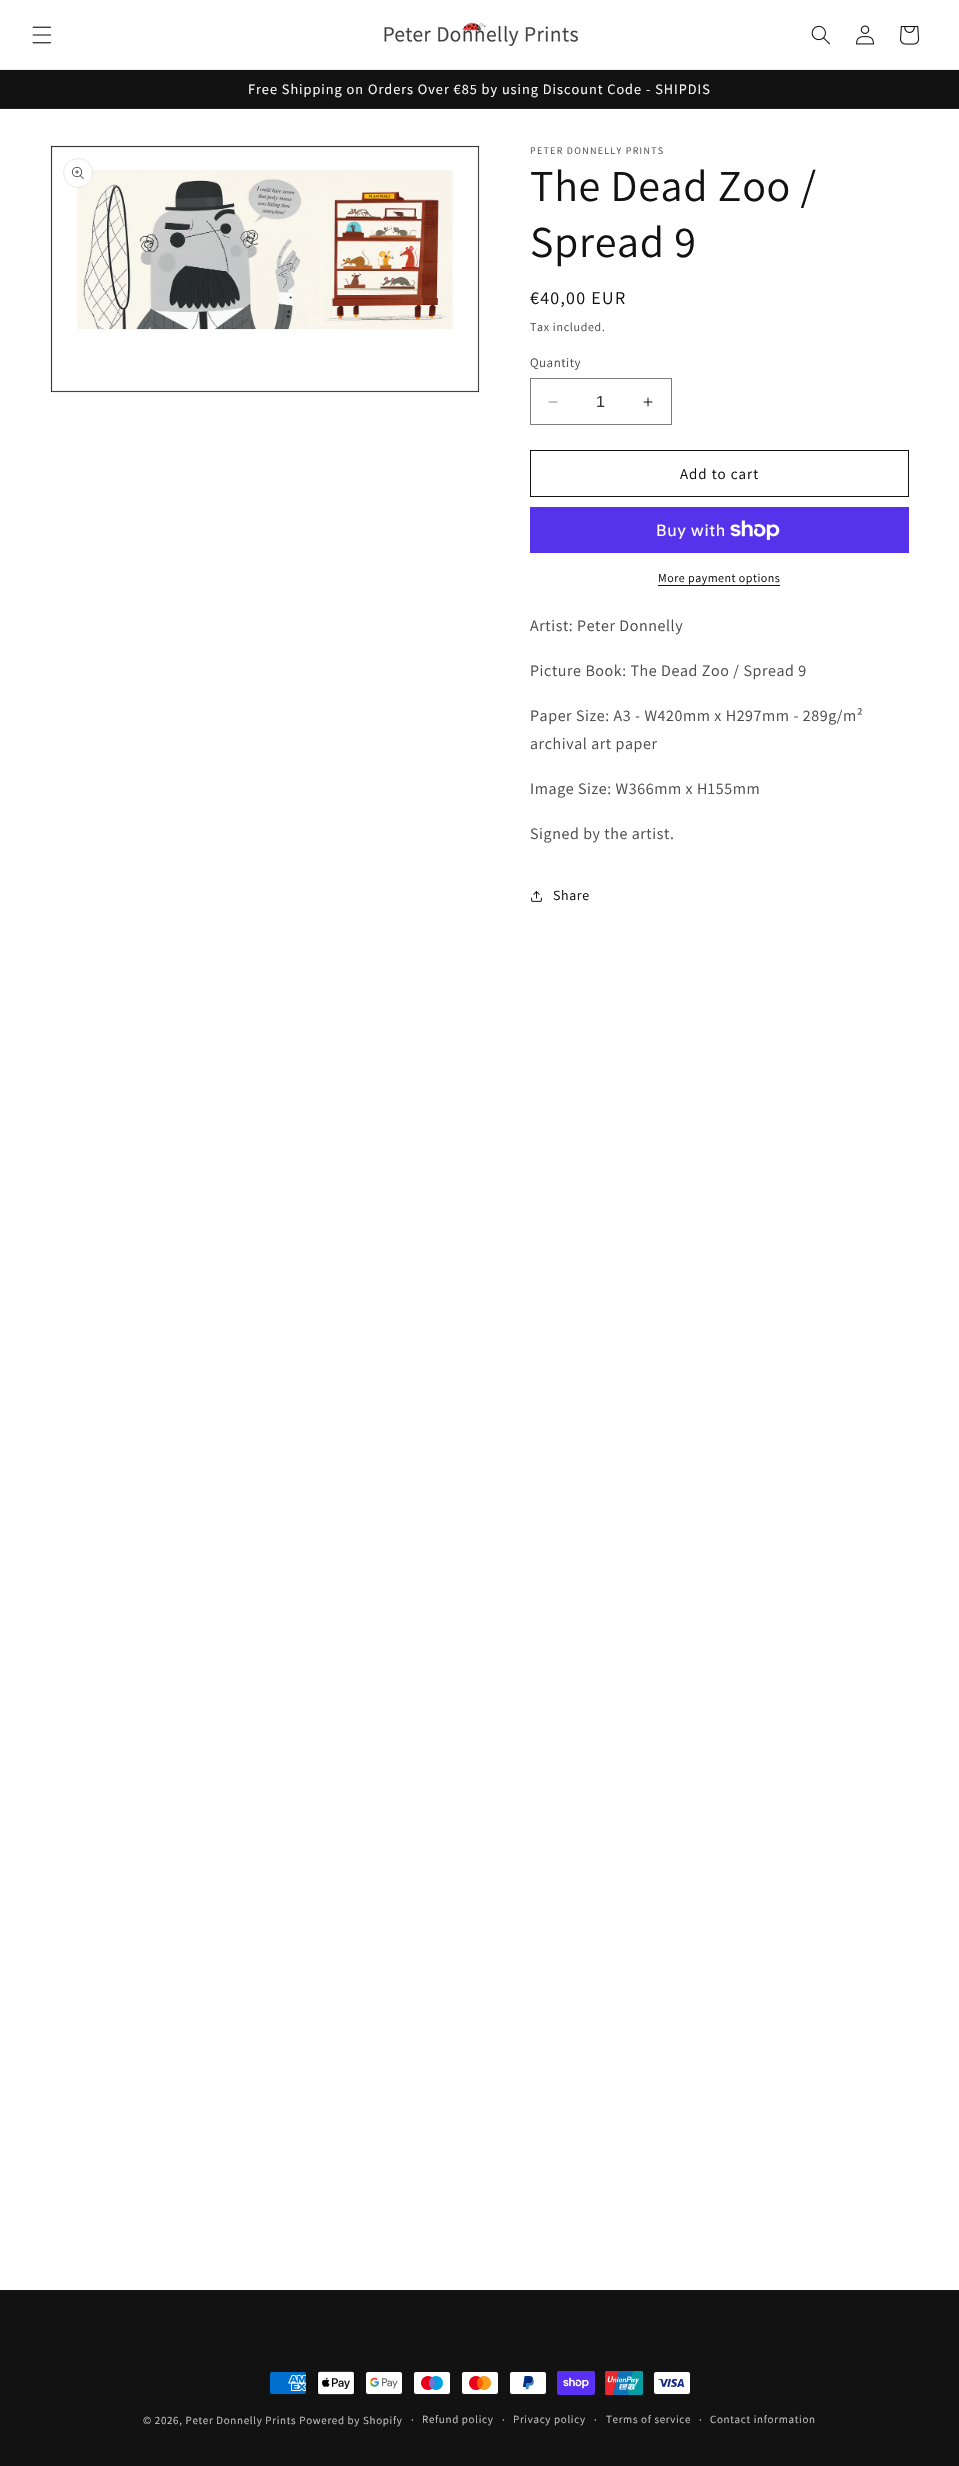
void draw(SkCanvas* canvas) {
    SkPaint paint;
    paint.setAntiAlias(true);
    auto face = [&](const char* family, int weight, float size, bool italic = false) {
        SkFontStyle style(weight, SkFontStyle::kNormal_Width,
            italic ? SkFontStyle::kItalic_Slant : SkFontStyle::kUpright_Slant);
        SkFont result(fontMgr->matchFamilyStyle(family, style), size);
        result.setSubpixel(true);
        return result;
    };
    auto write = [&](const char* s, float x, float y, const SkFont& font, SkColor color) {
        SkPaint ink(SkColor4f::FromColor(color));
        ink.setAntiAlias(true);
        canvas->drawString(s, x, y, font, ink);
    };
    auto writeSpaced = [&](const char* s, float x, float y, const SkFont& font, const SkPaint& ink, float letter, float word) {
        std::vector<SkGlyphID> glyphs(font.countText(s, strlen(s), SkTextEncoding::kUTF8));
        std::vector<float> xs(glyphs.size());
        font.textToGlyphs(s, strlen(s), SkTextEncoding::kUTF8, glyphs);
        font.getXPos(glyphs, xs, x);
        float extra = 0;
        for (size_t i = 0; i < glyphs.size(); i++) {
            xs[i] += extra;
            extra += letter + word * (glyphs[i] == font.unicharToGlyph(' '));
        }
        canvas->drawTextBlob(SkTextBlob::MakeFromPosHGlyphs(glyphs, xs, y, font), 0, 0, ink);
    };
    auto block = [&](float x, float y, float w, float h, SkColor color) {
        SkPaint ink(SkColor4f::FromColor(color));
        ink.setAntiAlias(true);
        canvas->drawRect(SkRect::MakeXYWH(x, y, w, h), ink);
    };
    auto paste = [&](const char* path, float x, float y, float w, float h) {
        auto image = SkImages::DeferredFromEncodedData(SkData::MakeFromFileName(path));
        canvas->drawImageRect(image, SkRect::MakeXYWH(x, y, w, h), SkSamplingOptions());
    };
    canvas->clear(SK_ColorWHITE);
    block(0, 69, 959, 1, SkColorSetRGB(236, 236, 236));
    paste("pic1.png", 32, 26, 20, 18);
    paste("pic2.png", 383, 18, 196, 28);
    paste("pic3.png", 811, 25, 19, 20);
    paste("pic4.png", 856, 25, 18, 20);
    paste("pic5.png", 900, 26, 20, 19);
    block(0, 70, 959, 38, SkColorSetRGB(18, 18, 18));
    block(0, 108, 959, 1, SkColorSetRGB(37, 37, 37));
    auto kFont1 = face("Assistant", 400, 14.3f);
    paint.setColor(SK_ColorWHITE);
    writeSpaced("Free Shipping on Orders Over €85 by using Discount Code - SHIPDIS", 248, 94, kFont1, paint, 1, 0);
    paint.setStyle(SkPaint::kStroke_Style);
    paint.setStrokeWidth(1);
    paint.setColor(SkColorSetRGB(243, 243, 243));
    canvas->drawRect(SkRect::MakeXYWH(50.5f, 145.5f, 429, 247), paint);
    paste("pic6.png", 51, 146, 428, 246);
    paint.setStyle(SkPaint::kFill_Style);
    paint.setColor(SK_ColorWHITE);
    canvas->drawCircle(78, 173, 15, paint);
    paint.setStyle(SkPaint::kStroke_Style);
    paint.setColor(SkColorSetARGB(26, 18, 18, 18));
    canvas->drawCircle(78, 173, 14.5f, paint);
    paste("pic7.png", 72, 167, 12, 12);
    auto kFont2 = face("Assistant", 400, 10);
    paint.setStyle(SkPaint::kFill_Style);
    paint.setColor(SkColorSetRGB(77, 77, 77));
    writeSpaced("PETER DONNELLY PRINTS", 530, 154, kFont2, paint, 1.3f, 0);
    auto kFont3 = face("Assistant", 400, 44);
    paint.setColor(SkColorSetRGB(18, 18, 18));
    writeSpaced("The Dead Zoo /", 530, 201, kFont3, paint, 0.7f, 0);
    writeSpaced("Spread 9", 530, 257, kFont3, paint, 0.7f, 0);
    auto kFont4 = face("Assistant", 400, 18);
    writeSpaced("€40,00 EUR", 530, 304, kFont4, paint, 1.3f, 0);
    auto kFont5 = face("Assistant", 400, 12);
    paint.setColor(SkColorSetRGB(77, 77, 77));
    writeSpaced("Tax included.", 530, 331, kFont5, paint, 0.7f, 0);
    auto kFont6 = face("Assistant", 400, 13);
    writeSpaced("Quantity", 530, 367, kFont6, paint, 0.5f, 0);
    paste("pic8.png", 548, 401, 10, 2);
    paste("pic9.png", 643, 397, 10, 10);
    paint.setStyle(SkPaint::kStroke_Style);
    paint.setColor(SkColorSetRGB(125, 125, 125));
    canvas->drawRect(SkRect::MakeXYWH(530.5f, 378.5f, 141, 46), paint);
    auto kFont7 = face("Liberation Sans", 400, 16);
    write("1", 596, 407, kFont7, SkColorSetRGB(54, 54, 54));
    paint.setColor(SkColorSetRGB(18, 18, 18));
    canvas->drawRect(SkRect::MakeXYWH(530.5f, 450.5f, 378, 46), paint);
    auto kFont8 = face("Assistant", 400, 15);
    paint.setStyle(SkPaint::kFill_Style);
    writeSpaced("Add to cart", 680, 479, kFont8, paint, 1, 0);
    block(530, 507, 379, 46, SkColorSetRGB(84, 51, 235));
    auto kFont9 = face("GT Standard", 400, 16);
    paint.setColor(SK_ColorWHITE);
    writeSpaced("Buy with", 656, 536, kFont9, paint, 0.6f, 0);
    paste("pic10.png", 730, 520, 50, 20);
    paint.setColor(SkColorSetRGB(18, 18, 18));
    writeSpaced("More payment options", 658, 582, kFont5, paint, 0.5f, 0);
    block(658, 585, 122, 1, SkColorSetRGB(18, 18, 18));
    auto kFont10 = face("Assistant", 400, 16);
    paint.setColor(SkColorSetRGB(77, 77, 77));
    writeSpaced("Artist: Peter Donnelly", 530, 631, kFont10, paint, 0.6f, 0);
    writeSpaced("Picture Book: The Dead Zoo / Spread 9", 530, 676, kFont10, paint, 0.6f, 0);
    writeSpaced("Paper Size: A3 - W420mm x H297mm - 289g/m²", 530, 721, kFont10, paint, 0.6f, 0);
    writeSpaced("archival art paper", 530, 749, kFont10, paint, 0.6f, 0);
    writeSpaced("Image Size: W366mm x H155mm", 530, 794, kFont10, paint, 0.6f, 0);
    writeSpaced("Signed by the artist.", 530, 839, kFont10, paint, 0.6f, 0);
    paste("pic11.png", 531, 891, 11, 11);
    auto kFont11 = face("Assistant", 400, 14);
    paint.setColor(SkColorSetRGB(18, 18, 18));
    writeSpaced("Share", 553, 900, kFont11, paint, 0.6f, 0);
    block(0, 2290, 959, 176, SkColorSetRGB(18, 18, 18));
    paste("pic12.png", 270, 2372, 36, 22);
    paste("pic13.png", 317, 2371, 38, 24);
    paste("pic14.png", 366, 2372, 36, 22);
    paste("pic15.png", 414, 2372, 36, 22);
    paste("pic16.png", 462, 2372, 36, 22);
    paste("pic17.png", 510, 2372, 36, 22);
    paste("pic18.png", 557, 2371, 38, 24);
    paste("pic19.png", 605, 2371, 38, 24);
    paste("pic20.png", 654, 2372, 36, 22);
    auto kFont12 = face("Assistant", 400, 11);
    paint.setColor(SkColorSetRGB(196, 196, 196));
    writeSpaced("© 2026, Peter Donnelly Prints Powered by Shopify", 143, 2424, kFont12, paint, 0.7f, 0);
    writeSpaced("·", 411, 2424, kFont5, paint, 0.7f, 0);
    writeSpaced("Refund policy", 422, 2423, kFont12, paint, 0.7f, 0);
    writeSpaced("·", 502, 2424, kFont5, paint, 0.7f, 0);
    writeSpaced("Privacy policy", 513, 2423, kFont12, paint, 0.7f, 0);
    writeSpaced("·", 594, 2424, kFont5, paint, 0.7f, 0);
    writeSpaced("Terms of service", 606, 2423, kFont12, paint, 0.7f, 0);
    writeSpaced("·", 699, 2424, kFont5, paint, 0.7f, 0);
    writeSpaced("Contact information", 710, 2423, kFont12, paint, 0.7f, 0);
}
